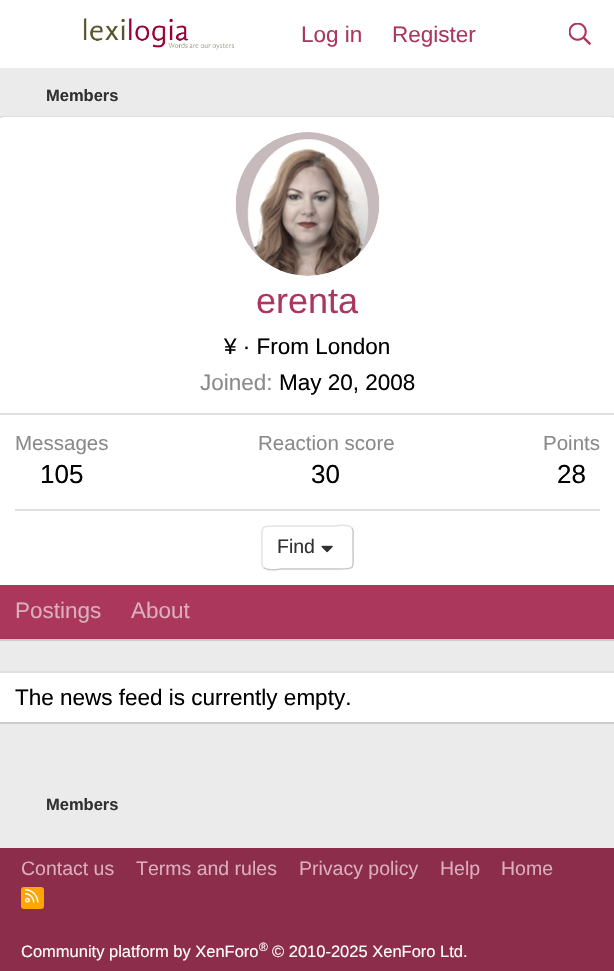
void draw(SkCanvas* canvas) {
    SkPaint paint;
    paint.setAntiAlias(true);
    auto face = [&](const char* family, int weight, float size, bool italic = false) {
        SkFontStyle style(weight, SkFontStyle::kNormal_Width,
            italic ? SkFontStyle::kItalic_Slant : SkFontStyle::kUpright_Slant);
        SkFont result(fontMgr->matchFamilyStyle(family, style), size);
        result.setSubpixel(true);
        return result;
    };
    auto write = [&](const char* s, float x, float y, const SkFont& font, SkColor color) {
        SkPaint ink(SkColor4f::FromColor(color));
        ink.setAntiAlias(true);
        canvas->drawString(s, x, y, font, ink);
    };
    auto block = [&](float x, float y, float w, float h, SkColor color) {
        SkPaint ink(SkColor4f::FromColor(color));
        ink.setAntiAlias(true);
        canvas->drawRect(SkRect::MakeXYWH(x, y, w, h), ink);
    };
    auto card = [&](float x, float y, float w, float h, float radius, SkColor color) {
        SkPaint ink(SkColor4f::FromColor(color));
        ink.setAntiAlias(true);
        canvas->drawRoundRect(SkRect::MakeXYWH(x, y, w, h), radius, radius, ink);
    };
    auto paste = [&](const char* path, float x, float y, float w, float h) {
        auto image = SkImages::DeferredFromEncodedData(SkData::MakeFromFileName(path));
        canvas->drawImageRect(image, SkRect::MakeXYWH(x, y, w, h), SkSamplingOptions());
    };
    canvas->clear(SkColorSetRGB(235, 235, 235));
    block(0, 0, 614, 68, SK_ColorWHITE);
    paste("pic1.png", 83, 18, 151, 32);
    auto kFont1 = face("Liberation Sans", 400, 22.5f);
    write("Log in", 301, 42, kFont1, SkColorSetRGB(171, 55, 93));
    write("Register", 392, 42, kFont1, SkColorSetRGB(171, 55, 93));
    paste("pic2.png", 569, 23, 22, 22);
    auto kFont2 = face("Liberation Sans", 700, 16.5f);
    write("Members", 46, 101, kFont2, SkColorSetRGB(49, 49, 49));
    block(0, 118, 614, 467, SK_ColorWHITE);
    block(0, 116, 614, 2, SkColorSetRGB(224, 224, 224));
    block(0, 639, 614, 2, SkColorSetRGB(204, 204, 204));
    paint.setColor(SK_ColorWHITE);
    canvas->drawPath(SkPathBuilder().moveTo(5, 117).lineTo(610, 117).cubicTo(613, 117, 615, 119, 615, 122).lineTo(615, 414).lineTo(0, 414).lineTo(0, 122).cubicTo(0, 119, 2, 117, 5, 117).close().detach(), paint);
    block(0, 413, 614, 2, SkColorSetRGB(224, 224, 224));
    paste("pic3.png", 235, 132, 145, 144);
    auto kFont3 = face("Liberation Sans", 400, 36);
    write("erenta", 256, 313, kFont3, SkColorSetRGB(171, 55, 93));
    write("¥ · From London", 224, 354, kFont1, SK_ColorBLACK);
    write("Joined:", 200, 390, kFont1, SkColorSetRGB(138, 138, 138));
    write("May 20, 2008", 279, 390, kFont1, SK_ColorBLACK);
    auto kFont4 = face("Liberation Sans", 400, 20.5f);
    write("Messages", 15, 450, kFont4, SkColorSetRGB(138, 138, 138));
    auto kFont5 = face("Liberation Sans", 400, 26);
    write("105", 40, 483, kFont5, SK_ColorBLACK);
    write("Reaction score", 258, 450, kFont4, SkColorSetRGB(138, 138, 138));
    write("30", 311, 483, kFont5, SK_ColorBLACK);
    write("Points", 543, 450, kFont4, SkColorSetRGB(138, 138, 138));
    write("28", 557, 483, kFont5, SK_ColorBLACK);
    block(15, 509, 585, 2, SkColorSetRGB(224, 224, 224));
    paint.setStyle(SkPaint::kStroke_Style);
    paint.setStrokeWidth(1.5f);
    paint.setColor(SkColorSetRGB(201, 201, 201));
    canvas->drawPath(SkPathBuilder().moveTo(351.5f, 527.5f).cubicTo(354, 529.5f, 353, 533.5f, 353, 536.5f).lineTo(353, 547.5f).cubicTo(353, 570.5f, 357, 569, 334.5f, 569).lineTo(280.5f, 569).cubicTo(279.5f, 569, 267, 571.5f, 263.5f, 567.5f).detach(), paint);
    paint.setColor(SkColorSetRGB(227, 227, 227));
    canvas->drawPath(SkPathBuilder().moveTo(263.5f, 567.5f).cubicTo(261, 565.5f, 262, 561.5f, 262, 558.5f).lineTo(262, 547.5f).cubicTo(262, 524.5f, 258, 526, 280.5f, 526).lineTo(334.5f, 526).cubicTo(335.5f, 526, 348, 523.5f, 351.5f, 527.5f).detach(), paint);
    auto kFont6 = face("Liberation Sans", 400, 19.5f);
    write("Find", 277, 553, kFont6, SkColorSetRGB(49, 49, 49));
    paste("pic4.png", 321, 545, 12, 8);
    block(0, 585, 614, 54, SkColorSetRGB(171, 55, 93));
    write("Postings", 15, 618, kFont1, SkColorSetRGB(219, 173, 189));
    write("About", 131, 618, kFont1, SkColorSetRGB(219, 173, 189));
    block(0, 673, 614, 49, SK_ColorWHITE);
    block(0, 671, 614, 2, SkColorSetRGB(224, 224, 224));
    block(0, 722, 614, 2, SkColorSetRGB(204, 204, 204));
    write("The news feed is currently empty.", 15, 705, kFont1, SK_ColorBLACK);
    write("Members", 46, 810, kFont2, SkColorSetRGB(49, 49, 49));
    block(0, 848, 614, 123, SkColorSetRGB(140, 45, 76));
    write("Contact us", 21, 875, kFont6, SkColorSetRGB(219, 173, 189));
    write("Terms and rules", 136, 875, kFont6, SkColorSetRGB(219, 173, 189));
    write("Privacy policy", 299, 875, kFont6, SkColorSetRGB(219, 173, 189));
    write("Help", 440, 875, kFont6, SkColorSetRGB(219, 173, 189));
    write("Home", 501, 875, kFont6, SkColorSetRGB(219, 173, 189));
    card(21, 887, 23, 22, 3, SkColorSetRGB(255, 165, 0));
    paste("pic5.png", 25, 889, 14, 14);
    auto kFont7 = face("Liberation Sans", 400, 16.5f);
    write("Community platform by XenForo", 21, 957, kFont7, SK_ColorWHITE);
    auto kFont8 = face("Liberation Sans", 400, 12);
    write("®", 259, 951, kFont8, SK_ColorWHITE);
    write("© 2010-2025 XenForo Ltd.", 272, 957, kFont7, SK_ColorWHITE);
}
